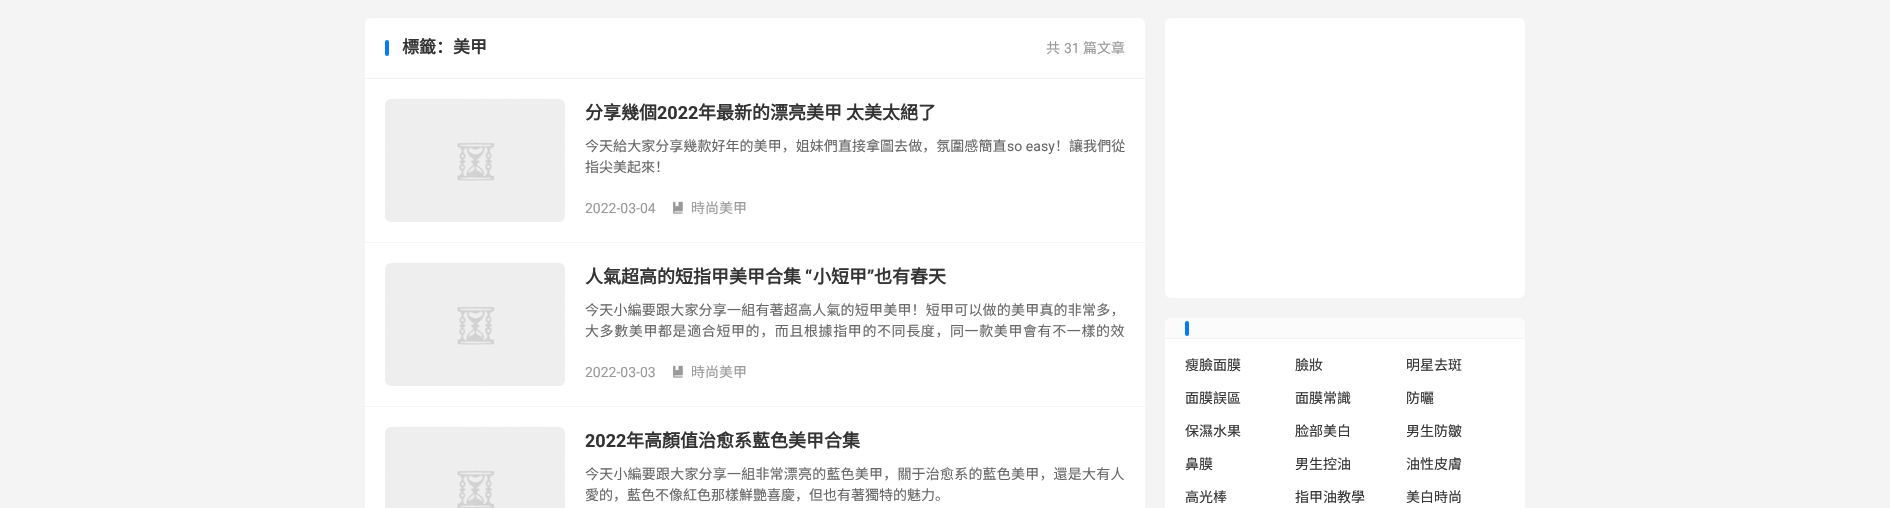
void draw(SkCanvas* canvas) {
    SkPaint paint;
    paint.setAntiAlias(true);
    auto face = [&](const char* family, int weight, float size, bool italic = false) {
        SkFontStyle style(weight, SkFontStyle::kNormal_Width,
            italic ? SkFontStyle::kItalic_Slant : SkFontStyle::kUpright_Slant);
        SkFont result(fontMgr->matchFamilyStyle(family, style), size);
        result.setSubpixel(true);
        return result;
    };
    auto write = [&](const char* s, float x, float y, const SkFont& font, SkColor color) {
        SkPaint ink(SkColor4f::FromColor(color));
        ink.setAntiAlias(true);
        canvas->drawString(s, x, y, font, ink);
    };
    auto writeSpaced = [&](const char* s, float x, float y, const SkFont& font, const SkPaint& ink, float letter, float word) {
        std::vector<SkGlyphID> glyphs(font.countText(s, strlen(s), SkTextEncoding::kUTF8));
        std::vector<float> xs(glyphs.size());
        font.textToGlyphs(s, strlen(s), SkTextEncoding::kUTF8, glyphs);
        font.getXPos(glyphs, xs, x);
        float extra = 0;
        for (size_t i = 0; i < glyphs.size(); i++) {
            xs[i] += extra;
            extra += letter + word * (glyphs[i] == font.unicharToGlyph(' '));
        }
        canvas->drawTextBlob(SkTextBlob::MakeFromPosHGlyphs(glyphs, xs, y, font), 0, 0, ink);
    };
    auto block = [&](float x, float y, float w, float h, SkColor color) {
        SkPaint ink(SkColor4f::FromColor(color));
        ink.setAntiAlias(true);
        canvas->drawRect(SkRect::MakeXYWH(x, y, w, h), ink);
    };
    auto card = [&](float x, float y, float w, float h, float radius, SkColor color) {
        SkPaint ink(SkColor4f::FromColor(color));
        ink.setAntiAlias(true);
        canvas->drawRoundRect(SkRect::MakeXYWH(x, y, w, h), radius, radius, ink);
    };
    auto paste = [&](const char* path, float x, float y, float w, float h) {
        auto image = SkImages::DeferredFromEncodedData(SkData::MakeFromFileName(path));
        canvas->drawImageRect(image, SkRect::MakeXYWH(x, y, w, h), SkSamplingOptions());
    };
    canvas->clear(SkColorSetRGB(244, 244, 244));
    paint.setColor(SK_ColorWHITE);
    canvas->drawPath(SkPathBuilder().moveTo(371, 18).lineTo(1139, 18).cubicTo(1142.5f, 18, 1145, 20.5f, 1145, 24).lineTo(1145, 79).lineTo(365, 79).lineTo(365, 24).cubicTo(365, 20.5f, 367.5f, 18, 371, 18).close().detach(), paint);
    block(365, 78, 780, 1, SkColorSetRGB(243, 243, 243));
    card(385, 40, 4, 16, 2, SkColorSetRGB(0, 123, 255));
    auto kFont1 = face("Noto Sans CJK SC", 700, 17);
    write("標籤：美甲", 402, 53, kFont1, SkColorSetRGB(51, 51, 51));
    auto kFont2 = face("Noto Sans CJK SC", 400, 14);
    write("共", 1046, 53, kFont2, SkColorSetRGB(153, 153, 153));
    auto kFont3 = face("Roboto", 400, 14);
    write("31", 1064, 53, kFont3, SkColorSetRGB(153, 153, 153));
    write("篇文章", 1083, 53, kFont2, SkColorSetRGB(153, 153, 153));
    block(365, 79, 780, 163, SK_ColorWHITE);
    paste("pic1.png", 385, 99, 180, 123);
    auto kFont4 = face("Noto Sans CJK SC", 700, 18);
    write("分享幾個", 585, 119, kFont4, SkColorSetRGB(51, 51, 51));
    auto kFont5 = face("Roboto", 700, 18);
    write("2022", 657, 119, kFont5, SkColorSetRGB(51, 51, 51));
    write("年最新的漂亮美甲 太美太絕了", 698, 119, kFont4, SkColorSetRGB(51, 51, 51));
    paint.setColor(SkColorSetRGB(102, 102, 102));
    writeSpaced("今天給大家分享幾款好年的美甲，姐妹們直接拿圖去做，氛圍感簡直", 585, 151, kFont2, paint, 0.05f, 0);
    writeSpaced("so easy", 1007, 151, kFont3, paint, 0.05f, 0);
    writeSpaced("！讓我們從", 1055, 151, kFont2, paint, 0.05f, 0);
    write("指尖美起來！", 585, 172, kFont2, SkColorSetRGB(102, 102, 102));
    write("2022-03-04", 585, 213, kFont3, SkColorSetRGB(153, 153, 153));
    paste("pic2.png", 673, 201, 10, 13);
    write("時尚美甲", 691, 213, kFont2, SkColorSetRGB(153, 153, 153));
    block(365, 243, 780, 163, SK_ColorWHITE);
    paste("pic1.png", 385, 263, 180, 123);
    write("人氣超高的短指甲美甲合集", 585, 283, kFont4, SkColorSetRGB(51, 51, 51));
    write("“", 805, 283, kFont5, SkColorSetRGB(51, 51, 51));
    write("小短甲", 813, 283, kFont4, SkColorSetRGB(51, 51, 51));
    write("”", 867, 283, kFont5, SkColorSetRGB(51, 51, 51));
    write("也有春天", 874, 283, kFont4, SkColorSetRGB(51, 51, 51));
    writeSpaced("今天小編要跟大家分享一組有著超高人氣的短甲美甲！短甲可以做的美甲真的非常多，", 585, 315, kFont2, paint, 0.2f, 0);
    writeSpaced("大多數美甲都是適合短甲的，而且根據指甲的不同長度，同一款美甲會有不一樣的效", 585, 336, kFont2, paint, 0.6f, 0);
    write("2022-03-03", 585, 377, kFont3, SkColorSetRGB(153, 153, 153));
    paste("pic2.png", 673, 365, 10, 13);
    write("時尚美甲", 691, 377, kFont2, SkColorSetRGB(153, 153, 153));
    block(365, 407, 780, 101, SK_ColorWHITE);
    paste("pic3.png", 385, 427, 180, 81);
    write("2022", 585, 447, kFont5, SkColorSetRGB(51, 51, 51));
    write("年高顏值治愈系藍色美甲合集", 626, 447, kFont4, SkColorSetRGB(51, 51, 51));
    writeSpaced("今天小編要跟大家分享一組非常漂亮的藍色美甲，關于治愈系的藍色美甲，還是大有人", 585, 479, kFont2, paint, 0.2f, 0);
    write("愛的，藍色不像紅色那樣鮮艷喜慶，但也有著獨特的魅力。", 585, 500, kFont2, SkColorSetRGB(102, 102, 102));
    card(1165, 18, 360, 280, 6, SK_ColorWHITE);
    card(1165, 318, 360, 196, 6, SK_ColorWHITE);
    paint.setColor(SkColorSetRGB(251, 251, 251));
    canvas->drawPath(SkPathBuilder().moveTo(1171, 318).lineTo(1519, 318).cubicTo(1522.5f, 318, 1525, 320.5f, 1525, 324).lineTo(1525, 339).lineTo(1165, 339).lineTo(1165, 324).cubicTo(1165, 320.5f, 1167.5f, 318, 1171, 318).close().detach(), paint);
    block(1165, 338, 360, 1, SkColorSetRGB(243, 243, 243));
    card(1185, 321, 4, 15, 2, SkColorSetRGB(0, 123, 255));
    write("瘦臉面膜", 1185, 370, kFont2, SkColorSetRGB(51, 51, 51));
    write("臉妝", 1295, 370, kFont2, SkColorSetRGB(51, 51, 51));
    write("明星去斑", 1406, 370, kFont2, SkColorSetRGB(51, 51, 51));
    write("面膜誤區", 1185, 403, kFont2, SkColorSetRGB(51, 51, 51));
    write("面膜常識", 1295, 403, kFont2, SkColorSetRGB(51, 51, 51));
    write("防曬", 1406, 403, kFont2, SkColorSetRGB(51, 51, 51));
    write("保濕水果", 1185, 436, kFont2, SkColorSetRGB(51, 51, 51));
    write("脸部美白", 1295, 436, kFont2, SkColorSetRGB(51, 51, 51));
    write("男生防皺", 1406, 436, kFont2, SkColorSetRGB(51, 51, 51));
    write("鼻膜", 1185, 469, kFont2, SkColorSetRGB(51, 51, 51));
    write("男生控油", 1295, 469, kFont2, SkColorSetRGB(51, 51, 51));
    write("油性皮膚", 1406, 469, kFont2, SkColorSetRGB(51, 51, 51));
    write("高光棒", 1185, 502, kFont2, SkColorSetRGB(51, 51, 51));
    write("指甲油教學", 1295, 502, kFont2, SkColorSetRGB(51, 51, 51));
    write("美白時尚", 1406, 502, kFont2, SkColorSetRGB(51, 51, 51));
}
